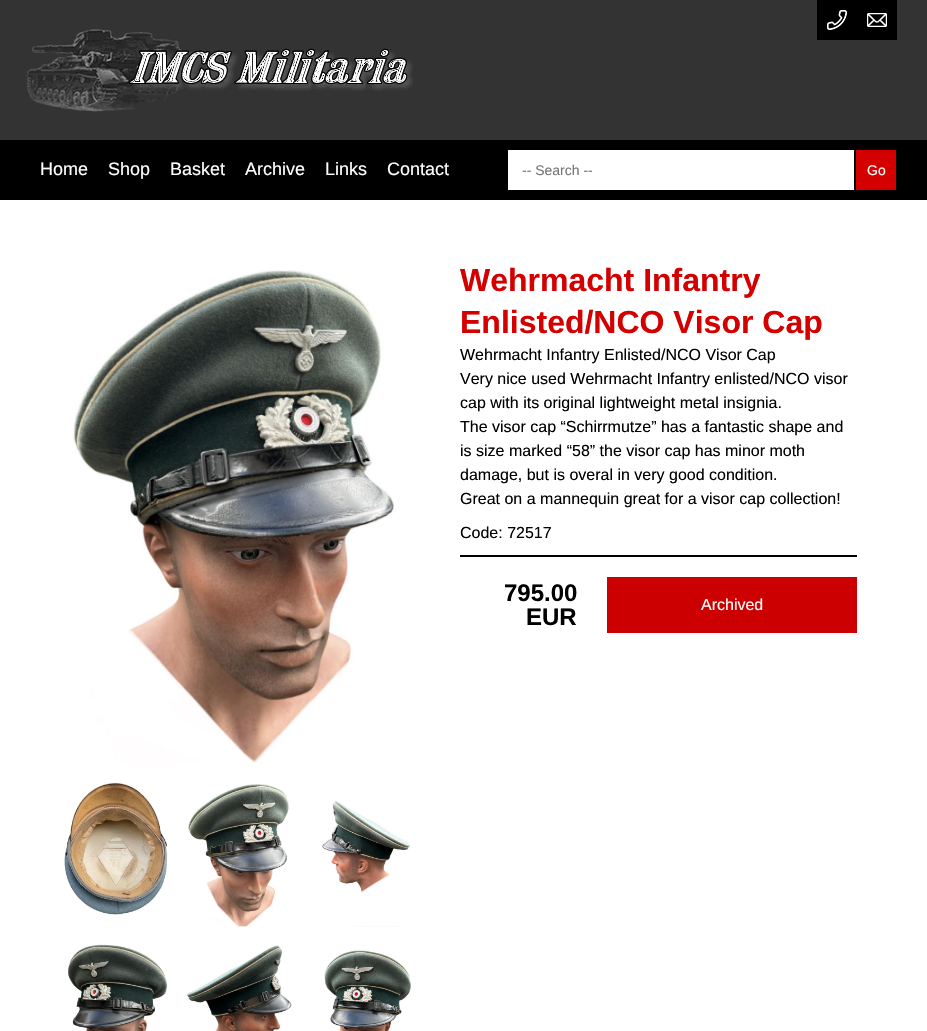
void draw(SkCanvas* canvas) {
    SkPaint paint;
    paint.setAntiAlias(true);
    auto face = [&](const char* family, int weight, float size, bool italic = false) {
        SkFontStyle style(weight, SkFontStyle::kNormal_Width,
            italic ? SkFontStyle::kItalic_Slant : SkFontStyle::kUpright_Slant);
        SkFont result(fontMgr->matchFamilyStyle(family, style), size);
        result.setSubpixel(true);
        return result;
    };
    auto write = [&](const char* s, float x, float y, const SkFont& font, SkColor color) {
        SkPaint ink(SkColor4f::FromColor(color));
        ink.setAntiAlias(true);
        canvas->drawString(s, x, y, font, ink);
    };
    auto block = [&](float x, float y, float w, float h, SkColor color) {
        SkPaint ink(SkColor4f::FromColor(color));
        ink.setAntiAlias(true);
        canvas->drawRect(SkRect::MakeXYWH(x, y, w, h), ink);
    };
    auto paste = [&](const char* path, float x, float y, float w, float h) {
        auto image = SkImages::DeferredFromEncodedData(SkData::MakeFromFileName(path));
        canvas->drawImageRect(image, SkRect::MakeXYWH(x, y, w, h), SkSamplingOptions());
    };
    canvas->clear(SkColorSetRGB(51, 51, 51));
    block(817, 0, 80, 40, SK_ColorBLACK);
    paste("pic1.png", 827, 10, 20, 20);
    paste("pic2.png", 867, 13, 20, 14);
    paste("pic3.png", 26, 29, 387, 83);
    block(0, 140, 927, 60, SK_ColorBLACK);
    auto kFont1 = face("Liberation Sans", 400, 18);
    write("Home", 40, 175, kFont1, SK_ColorWHITE);
    write("Shop", 108, 175, kFont1, SK_ColorWHITE);
    write("Basket", 170, 175, kFont1, SK_ColorWHITE);
    write("Archive", 245, 175, kFont1, SK_ColorWHITE);
    write("Links", 325, 175, kFont1, SK_ColorWHITE);
    write("Contact", 387, 175, kFont1, SK_ColorWHITE);
    block(508, 150, 346, 40, SK_ColorWHITE);
    auto kFont2 = face("Liberation Sans", 400, 14);
    write("-- Search --", 522, 175, kFont2, SkColorSetRGB(117, 117, 117));
    block(856, 150, 40, 40, SkColorSetRGB(212, 0, 0));
    write("Go", 867, 175, kFont2, SK_ColorWHITE);
    block(0, 200, 927, 831, SK_ColorWHITE);
    paste("pic4.png", 73, 270, 321, 493);
    paste("pic5.png", 64, 782, 104, 133);
    paste("pic6.png", 188, 784, 101, 143);
    paste("pic7.png", 322, 801, 88, 126);
    paste("pic8.png", 68, 944, 100, 87);
    paste("pic9.png", 187, 945, 105, 86);
    paste("pic10.png", 324, 950, 87, 81);
    auto kFont3 = face("Liberation Sans", 700, 32);
    write("Wehrmacht Infantry", 460, 291, kFont3, SkColorSetRGB(212, 0, 0));
    write("Enlisted/NCO Visor Cap", 460, 333, kFont3, SkColorSetRGB(212, 0, 0));
    auto kFont4 = face("Liberation Sans", 400, 16);
    write("Wehrmacht Infantry Enlisted/NCO Visor Cap", 460, 360, kFont4, SK_ColorBLACK);
    write("Very nice used Wehrmacht Infantry enlisted/NCO visor", 460, 384, kFont4, SK_ColorBLACK);
    write("cap with its original lightweight metal insignia.", 460, 408, kFont4, SK_ColorBLACK);
    write("The visor cap “Schirrmutze” has a fantastic shape and", 460, 432, kFont4, SK_ColorBLACK);
    write("is size marked “58” the visor cap has minor moth", 460, 456, kFont4, SK_ColorBLACK);
    write("damage, but is overal in very good condition.", 460, 480, kFont4, SK_ColorBLACK);
    write("Great on a mannequin great for a visor cap collection!", 460, 504, kFont4, SK_ColorBLACK);
    write("Code: 72517", 460, 538, kFont4, SK_ColorBLACK);
    block(460, 555, 397, 2, SK_ColorBLACK);
    auto kFont5 = face("Liberation Sans", 700, 24);
    write("795.00", 504, 601, kFont5, SK_ColorBLACK);
    write("EUR", 526, 625, kFont5, SK_ColorBLACK);
    block(607, 577, 250, 56, SkColorSetRGB(204, 0, 0));
    write("Archived", 701, 610, kFont4, SK_ColorWHITE);
}
